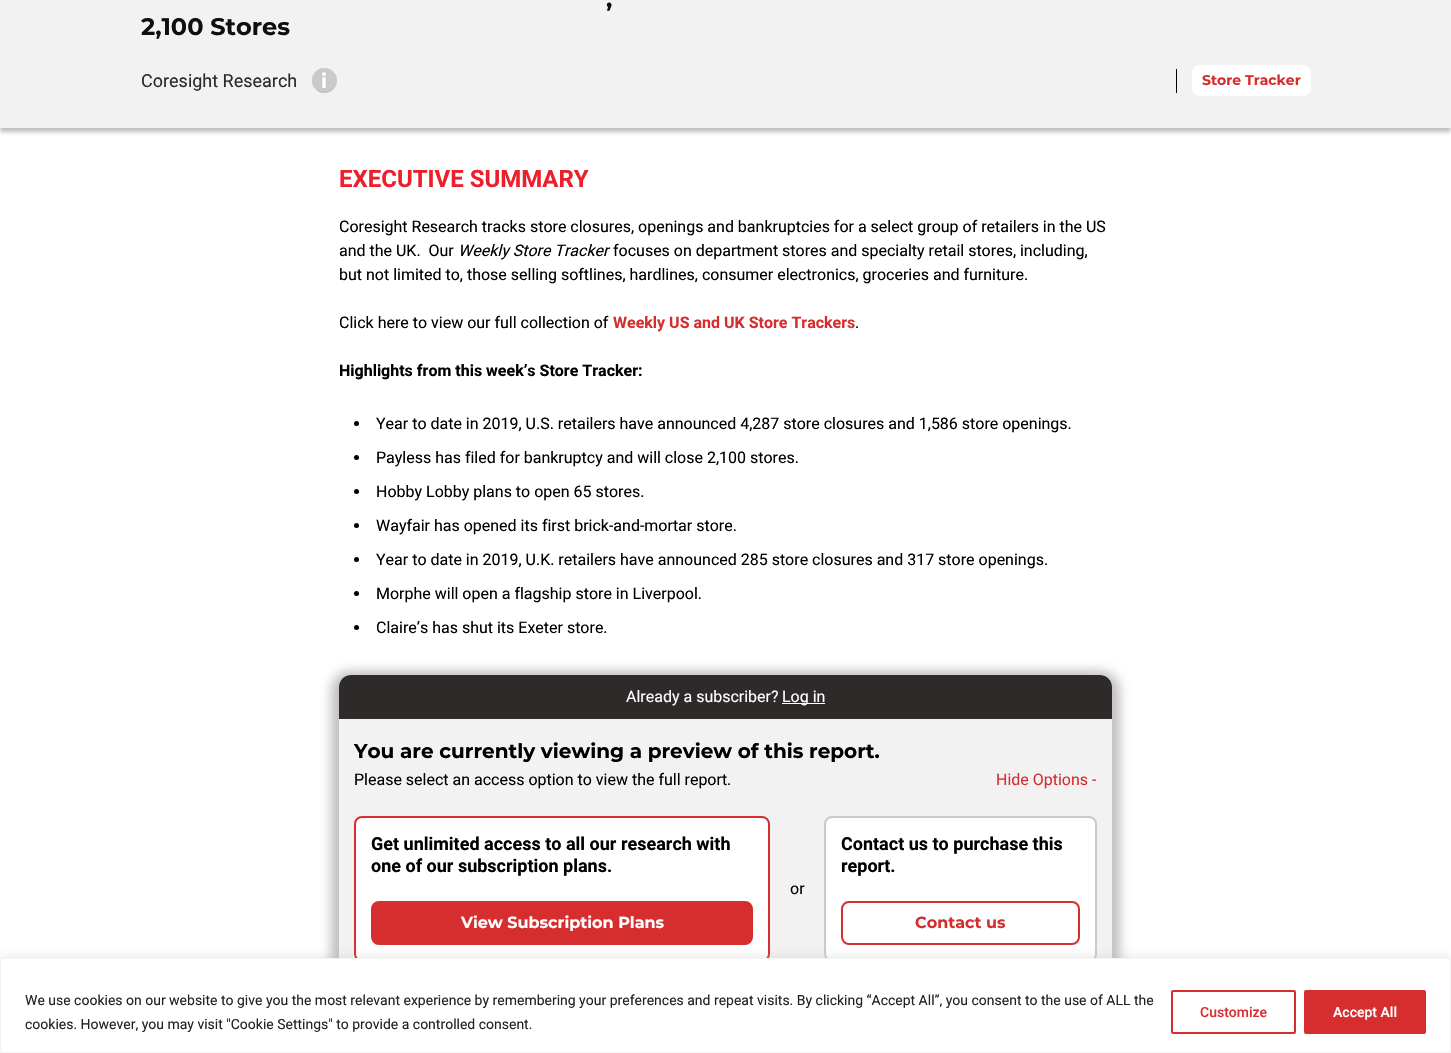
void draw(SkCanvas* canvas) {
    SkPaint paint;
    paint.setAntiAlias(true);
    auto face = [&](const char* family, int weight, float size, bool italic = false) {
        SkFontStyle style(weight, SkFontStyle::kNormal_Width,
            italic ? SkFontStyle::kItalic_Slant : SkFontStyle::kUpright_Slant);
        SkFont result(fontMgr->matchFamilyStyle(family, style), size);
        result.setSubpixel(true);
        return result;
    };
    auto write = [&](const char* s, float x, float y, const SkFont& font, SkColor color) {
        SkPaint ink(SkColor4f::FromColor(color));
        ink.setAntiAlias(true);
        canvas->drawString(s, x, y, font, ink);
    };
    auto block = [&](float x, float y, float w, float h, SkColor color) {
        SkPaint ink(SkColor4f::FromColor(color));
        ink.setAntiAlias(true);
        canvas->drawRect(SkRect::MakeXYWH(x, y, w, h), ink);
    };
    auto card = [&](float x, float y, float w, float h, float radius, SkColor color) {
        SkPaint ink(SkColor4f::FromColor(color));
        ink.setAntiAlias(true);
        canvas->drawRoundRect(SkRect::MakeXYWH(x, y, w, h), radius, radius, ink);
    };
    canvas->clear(SK_ColorWHITE);
    paint.setColor(SkColorSetARGB(64, 0, 0, 0));
    paint.setMaskFilter(SkMaskFilter::MakeBlur(kNormal_SkBlurStyle, 2));
    canvas->drawRect(SkRect::MakeXYWH(0, -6, 1451, 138), paint);
    paint.setMaskFilter(nullptr);
    block(0, 0, 1451, 128, SkColorSetRGB(242, 242, 242));
    auto kFont1 = face("Montserrat", 700, 24);
    write(",", 606, 7, kFont1, SkColorSetRGB(15, 15, 16));
    write("2,100 Stores", 141, 35, kFont1, SkColorSetRGB(15, 15, 16));
    auto kFont2 = face("Roboto", 400, 18);
    write("Coresight Research", 141, 87, kFont2, SkColorSetRGB(45, 42, 41));
    paint.setColor(SkColorSetRGB(203, 202, 202));
    canvas->drawCircle(324.5f, 80.5f, 12.5f, paint);
    paint.setStyle(SkPaint::kStroke_Style);
    paint.setStrokeWidth(1);
    paint.setColor(SkColorSetRGB(187, 187, 187));
    canvas->drawPath(SkPathBuilder().moveTo(333, 89).cubicTo(328.5f, 93.5f, 320.5f, 93.5f, 316, 89).detach(), paint);
    paint.setColor(SkColorSetRGB(204, 204, 204));
    canvas->drawPath(SkPathBuilder().moveTo(316, 89).cubicTo(313, 86, 312, 82, 312.5f, 78).cubicTo(315.5f, 64, 336.5f, 66, 336.5f, 80.5f).cubicTo(336.5f, 83.5f, 335, 87, 333, 89).detach(), paint);
    auto kFont3 = face("Montserrat", 700, 20);
    write("i", 321, 88, kFont3, SK_ColorWHITE);
    block(1176, 69, 1, 24, SK_ColorBLACK);
    card(1192, 65, 119, 31, 8, SK_ColorWHITE);
    auto kFont4 = face("Montserrat", 700, 14);
    write("Store Tracker", 1202, 85, kFont4, SkColorSetRGB(214, 46, 47));
    auto kFont5 = face("Roboto", 700, 24);
    write("EXECUTIVE SUMMARY", 339, 187, kFont5, SkColorSetRGB(237, 31, 44));
    auto kFont6 = face("Roboto", 400, 16);
    write("Coresight Research tracks store closures, openings and bankruptcies for a select group of retailers in the US", 339, 232, kFont6, SK_ColorBLACK);
    write("and the UK.  Our", 339, 256, kFont6, SK_ColorBLACK);
    auto kFont7 = face("Roboto", 400, 16, true);
    write("Weekly Store Tracker", 458, 256, kFont7, SK_ColorBLACK);
    write("focuses on department stores and specialty retail stores, including,", 613, 256, kFont6, SK_ColorBLACK);
    write("but not limited to, those selling softlines, hardlines, consumer electronics, groceries and furniture.", 339, 280, kFont6, SK_ColorBLACK);
    write("Click here to view our full collection of", 339, 328, kFont6, SK_ColorBLACK);
    auto kFont8 = face("Roboto", 700, 16);
    write("Weekly US and UK Store Trackers", 613, 328, kFont8, SkColorSetRGB(214, 46, 47));
    write(".", 855, 328, kFont6, SK_ColorBLACK);
    write("Highlights from this week’s Store Tracker:", 339, 376, kFont8, SK_ColorBLACK);
    paint.setStyle(SkPaint::kFill_Style);
    paint.setColor(SK_ColorBLACK);
    canvas->drawCircle(356.5f, 423.5f, 2.5f, paint);
    write("Year to date in 2019, U.S. retailers have announced 4,287 store closures and 1,586 store openings.", 376, 429, kFont6, SK_ColorBLACK);
    canvas->drawCircle(356.5f, 457.5f, 2.5f, paint);
    write("Payless has filed for bankruptcy and will close 2,100 stores.", 376, 463, kFont6, SK_ColorBLACK);
    canvas->drawCircle(356.5f, 491.5f, 2.5f, paint);
    write("Hobby Lobby plans to open 65 stores.", 376, 497, kFont6, SK_ColorBLACK);
    canvas->drawCircle(356.5f, 525.5f, 2.5f, paint);
    write("Wayfair has opened its first brick-and-mortar store.", 376, 531, kFont6, SK_ColorBLACK);
    canvas->drawCircle(356.5f, 559.5f, 2.5f, paint);
    write("Year to date in 2019, U.K. retailers have announced 285 store closures and 317 store openings.", 376, 565, kFont6, SK_ColorBLACK);
    canvas->drawCircle(356.5f, 593.5f, 2.5f, paint);
    write("Morphe will open a flagship store in Liverpool.", 376, 599, kFont6, SK_ColorBLACK);
    canvas->drawCircle(356.5f, 627.5f, 2.5f, paint);
    write("Claire’s has shut its Exeter store.", 376, 633, kFont6, SK_ColorBLACK);
    paint.setColor(SkColorSetARGB(64, 0, 0, 0));
    paint.setMaskFilter(SkMaskFilter::MakeBlur(kNormal_SkBlurStyle, 5.5f));
    canvas->drawRoundRect(SkRect::MakeXYWH(331, 671, 789, 323), 20, 20, paint);
    paint.setMaskFilter(nullptr);
    card(339, 675, 773, 307, 12, SkColorSetRGB(242, 242, 242));
    paint.setColor(SkColorSetRGB(45, 42, 41));
    canvas->drawPath(SkPathBuilder().moveTo(351, 675).lineTo(1100, 675).cubicTo(1106.5f, 675, 1112, 680.5f, 1112, 687).lineTo(1112, 719).lineTo(339, 719).lineTo(339, 687).cubicTo(339, 680.5f, 344.5f, 675, 351, 675).close().detach(), paint);
    write("Already a subscriber?", 626, 702, kFont6, SK_ColorWHITE);
    block(782, 703, 43, 1, SK_ColorWHITE);
    write("Log in", 782, 702, kFont6, SK_ColorWHITE);
    write("You are currently viewing a preview of this report.", 354, 758, kFont3, SK_ColorBLACK);
    write("Please select an access option to view the full report.", 354, 785, kFont6, SK_ColorBLACK);
    write("Hide Options -", 996, 785, kFont6, SkColorSetRGB(214, 46, 47));
    paint.setColor(SK_ColorWHITE);
    canvas->drawRoundRect(SkRect::MakeXYWH(355, 817, 414, 144), 7, 7, paint);
    paint.setStyle(SkPaint::kStroke_Style);
    paint.setStrokeWidth(2);
    paint.setColor(SkColorSetRGB(214, 46, 47));
    canvas->drawRoundRect(SkRect::MakeXYWH(355, 817, 414, 144), 7, 7, paint);
    auto kFont9 = face("Roboto", 700, 18);
    write("Get unlimited access to all our research with", 371, 850, kFont9, SK_ColorBLACK);
    write("one of our subscription plans.", 371, 872, kFont9, SK_ColorBLACK);
    paint.setStyle(SkPaint::kFill_Style);
    canvas->drawRoundRect(SkRect::MakeXYWH(372, 902, 380, 42), 7, 7, paint);
    paint.setStyle(SkPaint::kStroke_Style);
    canvas->drawRoundRect(SkRect::MakeXYWH(372, 902, 380, 42), 7, 7, paint);
    auto kFont10 = face("Montserrat", 700, 16);
    write("View Subscription Plans", 461, 928, kFont10, SK_ColorWHITE);
    write("or", 790, 894, kFont6, SK_ColorBLACK);
    paint.setStyle(SkPaint::kFill_Style);
    paint.setColor(SK_ColorWHITE);
    canvas->drawRoundRect(SkRect::MakeXYWH(825, 817, 271, 144), 7, 7, paint);
    paint.setStyle(SkPaint::kStroke_Style);
    paint.setColor(SkColorSetRGB(203, 202, 202));
    canvas->drawRoundRect(SkRect::MakeXYWH(825, 817, 271, 144), 7, 7, paint);
    write("Contact us to purchase this", 841, 850, kFont9, SK_ColorBLACK);
    write("report.", 841, 872, kFont9, SK_ColorBLACK);
    paint.setColor(SkColorSetRGB(214, 46, 47));
    canvas->drawRoundRect(SkRect::MakeXYWH(842, 902, 237, 42), 7, 7, paint);
    write("Contact us", 915, 928, kFont10, SkColorSetRGB(214, 46, 47));
    paint.setStyle(SkPaint::kFill_Style);
    paint.setColor(SkColorSetARGB(77, 172, 171, 171));
    paint.setMaskFilter(SkMaskFilter::MakeBlur(kNormal_SkBlurStyle, 5));
    canvas->drawRect(SkRect::MakeXYWH(0, 957, 1451, 95), paint);
    paint.setMaskFilter(nullptr);
    paint.setColor(SK_ColorWHITE);
    canvas->drawRect(SkRect::MakeXYWH(0.5f, 958.5f, 1450, 94), paint);
    paint.setStyle(SkPaint::kStroke_Style);
    paint.setStrokeWidth(1);
    paint.setColor(SkColorSetRGB(244, 244, 244));
    canvas->drawRect(SkRect::MakeXYWH(0.5f, 958.5f, 1450, 94), paint);
    auto kFont11 = face("Roboto", 400, 14);
    write("We use cookies on our website to give you the most relevant experience by remembering your preferences and repeat visits. By clicking “Accept All”, you consent to the use of ALL the", 25, 1005, kFont11, SkColorSetRGB(33, 33, 33));
    write("cookies. However, you may visit \"Cookie Settings\" to provide a controlled consent.", 25, 1029, kFont11, SkColorSetRGB(33, 33, 33));
    paint.setStrokeWidth(2);
    paint.setColor(SkColorSetRGB(214, 46, 47));
    canvas->drawRoundRect(SkRect::MakeXYWH(1172, 991, 123, 42), 1, 1, paint);
    auto kFont12 = face("Roboto", 500, 14);
    write("Customize", 1200, 1017, kFont12, SkColorSetRGB(214, 46, 47));
    paint.setStyle(SkPaint::kFill_Style);
    canvas->drawRoundRect(SkRect::MakeXYWH(1305, 991, 120, 42), 1, 1, paint);
    paint.setStyle(SkPaint::kStroke_Style);
    canvas->drawRoundRect(SkRect::MakeXYWH(1305, 991, 120, 42), 1, 1, paint);
    write("Accept All", 1333, 1017, kFont12, SK_ColorWHITE);
}
